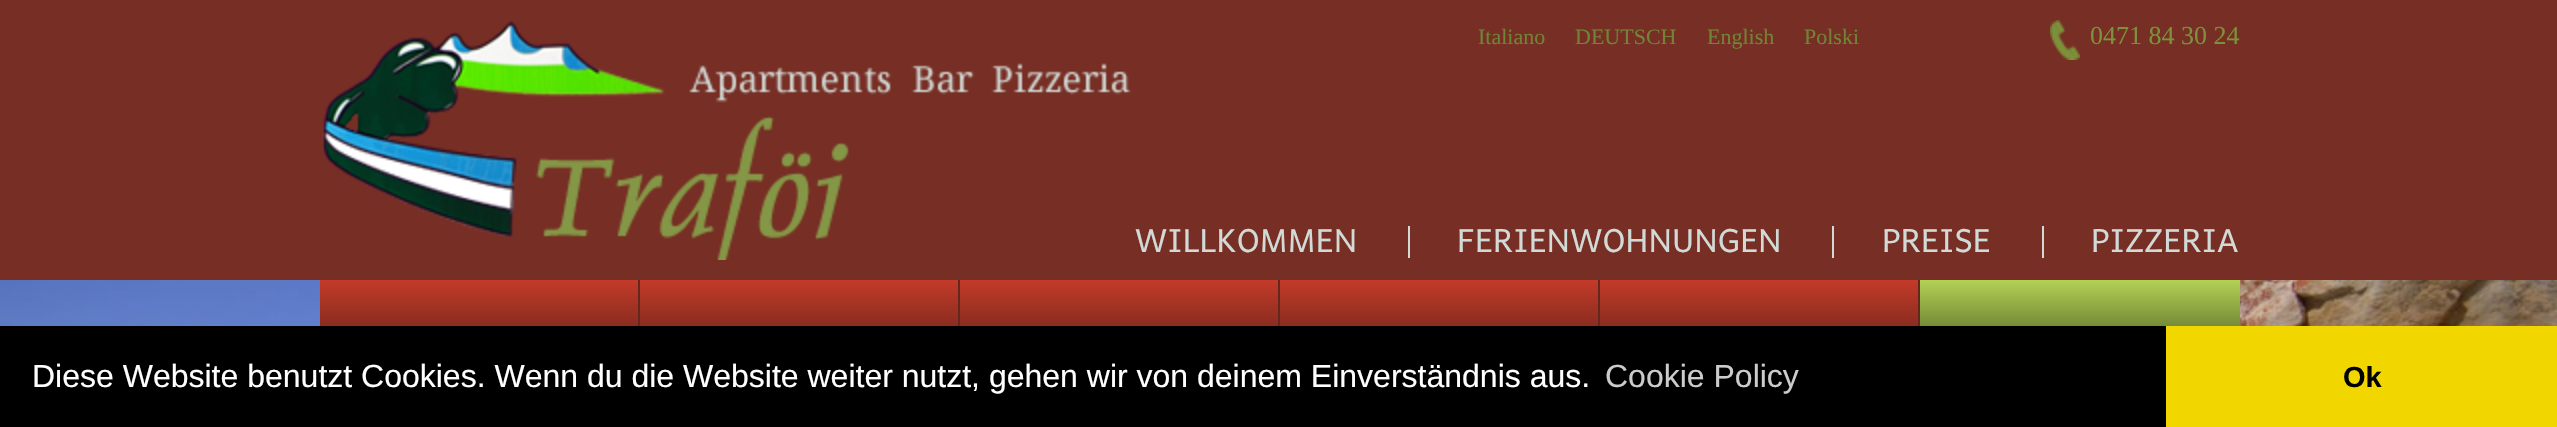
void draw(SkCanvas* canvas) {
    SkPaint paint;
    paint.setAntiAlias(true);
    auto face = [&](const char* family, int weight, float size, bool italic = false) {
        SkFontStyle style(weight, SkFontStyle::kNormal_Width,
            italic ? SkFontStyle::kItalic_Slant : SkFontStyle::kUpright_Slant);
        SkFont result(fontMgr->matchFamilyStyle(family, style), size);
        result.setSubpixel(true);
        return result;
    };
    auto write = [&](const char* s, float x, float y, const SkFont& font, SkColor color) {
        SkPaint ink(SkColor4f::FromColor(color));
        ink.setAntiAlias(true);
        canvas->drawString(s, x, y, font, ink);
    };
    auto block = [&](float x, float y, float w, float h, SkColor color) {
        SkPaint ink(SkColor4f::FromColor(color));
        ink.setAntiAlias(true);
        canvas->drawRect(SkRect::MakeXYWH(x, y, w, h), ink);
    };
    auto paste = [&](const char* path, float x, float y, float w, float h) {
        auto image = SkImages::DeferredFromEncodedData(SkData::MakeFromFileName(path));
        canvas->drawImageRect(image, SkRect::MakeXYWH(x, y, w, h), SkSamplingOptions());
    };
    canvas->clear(SkColorSetRGB(119, 46, 36));
    paste("pic1.png", 323, 21, 808, 239);
    auto kFont1 = face("Liberation Serif", 400, 22);
    write("Italiano", 1478, 44, kFont1, SkColorSetRGB(113, 132, 53));
    write("DEUTSCH", 1575, 44, kFont1, SkColorSetRGB(113, 132, 53));
    write("English", 1707, 44, kFont1, SkColorSetRGB(113, 132, 53));
    write("Polski", 1804, 44, kFont1, SkColorSetRGB(113, 132, 53));
    paste("pic2.png", 2050, 20, 30, 40);
    auto kFont2 = face("Liberation Serif", 400, 26);
    write("0471 84 30 24", 2090, 44, kFont2, SkColorSetRGB(124, 145, 58));
    auto kFont3 = face("Andika", 400, 32);
    write("WILLKOMMEN", 1135, 252, kFont3, SkColorSetRGB(209, 218, 214));
    block(1408, 226, 2, 32, SkColorSetRGB(209, 218, 214));
    write("FERIENWOHNUNGEN", 1457, 252, kFont3, SkColorSetRGB(209, 218, 214));
    block(1832, 226, 2, 32, SkColorSetRGB(209, 218, 214));
    write("PREISE", 1882, 252, kFont3, SkColorSetRGB(209, 218, 214));
    block(2042, 226, 2, 32, SkColorSetRGB(209, 218, 214));
    write("PIZZERIA", 2091, 252, kFont3, SkColorSetRGB(209, 218, 214));
    paste("pic3.png", 0, 280, 2557, 46);
    {
        const SkColor colors[] = {SkColorSetRGB(195, 58, 40), SkColorSetRGB(79, 31, 24)};
        const float stops[] = {0.01f, 1};
        const SkPoint ends[] = {{479, 280}, {479, 372}};
        paint.setShader(SkGradientShader::MakeLinear(ends, colors, stops, 2, SkTileMode::kClamp));
        paint.setAlpha(255);
    }
    canvas->drawRect(SkRect::MakeXYWH(320, 280, 318, 46), paint);
    block(638, 280, 2, 46, SkColorSetRGB(99, 39, 30));
    {
        const SkColor colors[] = {SkColorSetRGB(195, 58, 40), SkColorSetRGB(79, 31, 24)};
        const float stops[] = {0.01f, 1};
        const SkPoint ends[] = {{799, 280}, {799, 372}};
        paint.setShader(SkGradientShader::MakeLinear(ends, colors, stops, 2, SkTileMode::kClamp));
        paint.setAlpha(255);
    }
    canvas->drawRect(SkRect::MakeXYWH(640, 280, 318, 46), paint);
    block(958, 280, 2, 46, SkColorSetRGB(99, 39, 30));
    {
        const SkColor colors[] = {SkColorSetRGB(195, 58, 40), SkColorSetRGB(79, 31, 24)};
        const float stops[] = {0.01f, 1};
        const SkPoint ends[] = {{1119, 280}, {1119, 372}};
        paint.setShader(SkGradientShader::MakeLinear(ends, colors, stops, 2, SkTileMode::kClamp));
        paint.setAlpha(255);
    }
    canvas->drawRect(SkRect::MakeXYWH(960, 280, 318, 46), paint);
    block(1278, 280, 2, 46, SkColorSetRGB(99, 39, 30));
    {
        const SkColor colors[] = {SkColorSetRGB(195, 58, 40), SkColorSetRGB(79, 31, 24)};
        const float stops[] = {0.01f, 1};
        const SkPoint ends[] = {{1439, 280}, {1439, 372}};
        paint.setShader(SkGradientShader::MakeLinear(ends, colors, stops, 2, SkTileMode::kClamp));
        paint.setAlpha(255);
    }
    canvas->drawRect(SkRect::MakeXYWH(1280, 280, 318, 46), paint);
    block(1598, 280, 2, 46, SkColorSetRGB(99, 39, 30));
    {
        const SkColor colors[] = {SkColorSetRGB(195, 58, 40), SkColorSetRGB(79, 31, 24)};
        const float stops[] = {0.01f, 1};
        const SkPoint ends[] = {{1759, 280}, {1759, 372}};
        paint.setShader(SkGradientShader::MakeLinear(ends, colors, stops, 2, SkTileMode::kClamp));
        paint.setAlpha(255);
    }
    canvas->drawRect(SkRect::MakeXYWH(1600, 280, 318, 46), paint);
    block(1918, 280, 2, 46, SkColorSetRGB(99, 39, 30));
    {
        const SkColor colors[] = {SkColorSetRGB(178, 208, 84), SkColorSetRGB(58, 68, 27)};
        const float stops[] = {0.01f, 1};
        const SkPoint ends[] = {{2080, 280}, {2080, 372}};
        paint.setShader(SkGradientShader::MakeLinear(ends, colors, stops, 2, SkTileMode::kClamp));
        paint.setAlpha(255);
    }
    canvas->drawRect(SkRect::MakeXYWH(1920, 280, 320, 46), paint);
    block(0, 326, 2166, 101, SK_ColorBLACK);
    auto kFont4 = face("Liberation Sans", 400, 32);
    write("Diese Website benutzt Cookies. Wenn du die Website weiter nutzt, gehen wir von deinem Einverständnis aus.", 32, 387, kFont4, SK_ColorWHITE);
    write("Cookie Policy", 1605, 387, kFont4, SkColorSetRGB(204, 204, 204));
    block(2166, 326, 391, 101, SkColorSetRGB(241, 214, 0));
    auto kFont5 = face("Liberation Sans", 700, 29);
    write("Ok", 2343, 387, kFont5, SK_ColorBLACK);
}
